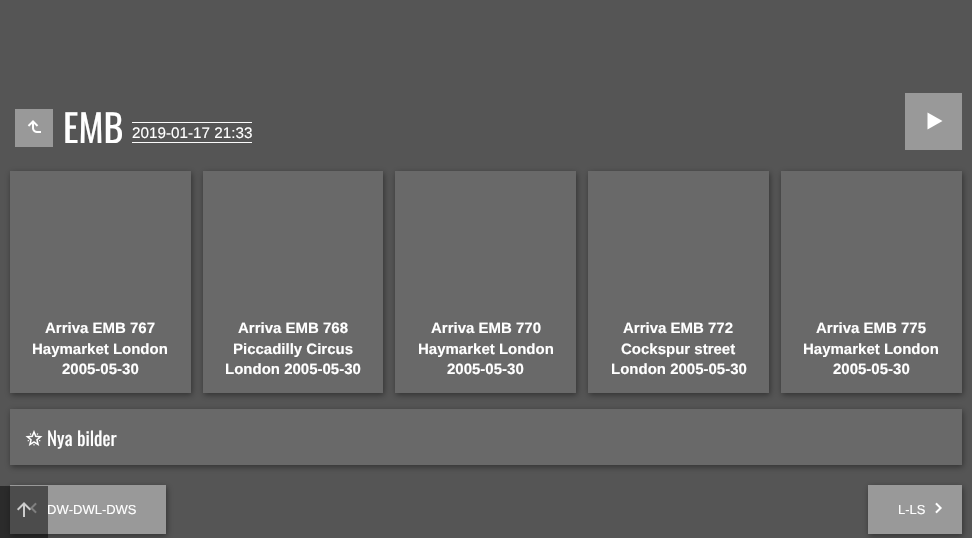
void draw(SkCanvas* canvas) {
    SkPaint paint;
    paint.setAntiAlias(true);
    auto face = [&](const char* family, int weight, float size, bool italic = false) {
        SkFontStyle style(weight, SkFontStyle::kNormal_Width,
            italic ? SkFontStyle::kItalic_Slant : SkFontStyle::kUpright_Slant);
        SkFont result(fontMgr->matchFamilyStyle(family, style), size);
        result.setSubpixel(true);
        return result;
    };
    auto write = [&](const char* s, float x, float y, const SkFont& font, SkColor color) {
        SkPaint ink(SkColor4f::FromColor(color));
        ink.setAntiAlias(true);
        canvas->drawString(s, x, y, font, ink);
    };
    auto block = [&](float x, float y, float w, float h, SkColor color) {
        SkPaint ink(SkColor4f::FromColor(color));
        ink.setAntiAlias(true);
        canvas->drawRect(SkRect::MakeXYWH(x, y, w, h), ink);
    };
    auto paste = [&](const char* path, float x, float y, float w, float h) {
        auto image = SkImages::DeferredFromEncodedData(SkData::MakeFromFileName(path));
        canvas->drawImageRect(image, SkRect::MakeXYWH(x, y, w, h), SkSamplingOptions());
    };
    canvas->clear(SkColorSetRGB(85, 85, 85));
    block(15, 109, 38, 38, SkColorSetRGB(153, 153, 153));
    paste("pic1.png", 27, 120, 14, 13);
    auto kFont1 = face("Oswald", 400, 38);
    write("EMB", 63, 143, kFont1, SK_ColorWHITE);
    block(132, 122, 120, 1, SkColorSetRGB(251, 251, 251));
    block(132, 142, 120, 1, SkColorSetRGB(251, 251, 251));
    auto kFont2 = face("Liberation Sans", 400, 15.25f);
    write("2019-01-17 21:33", 132, 138, kFont2, SK_ColorWHITE);
    block(905, 93, 57, 57, SkColorSetRGB(153, 153, 153));
    paint.setColor(SK_ColorWHITE);
    canvas->drawPath(SkPathBuilder().moveTo(927.5f, 112.5f).lineTo(942.5f, 121).lineTo(927.5f, 129.5f).close().detach(), paint);
    paint.setColor(SkColorSetARGB(107, 0, 0, 0));
    paint.setMaskFilter(SkMaskFilter::MakeBlur(kNormal_SkBlurStyle, 3));
    canvas->drawRect(SkRect::MakeXYWH(11, 487, 156, 49), paint);
    paint.setMaskFilter(nullptr);
    block(10, 485, 156, 49, SkColorSetRGB(153, 153, 153));
    paste("pic4.png", 30, 502, 7, 12);
    auto kFont3 = face("Liberation Sans", 400, 13);
    write("DW-DWL-DWS", 47, 514, kFont3, SK_ColorWHITE);
    block(0, 486, 48, 52, SkColorSetARGB(128, 0, 0, 0));
    paste("pic2.png", 17, 502, 14, 15);
    paint.setMaskFilter(SkMaskFilter::MakeBlur(kNormal_SkBlurStyle, 3));
    canvas->drawRect(SkRect::MakeXYWH(11, 173, 181, 222), paint);
    paint.setMaskFilter(nullptr);
    block(10, 171, 181, 222, SkColorSetRGB(105, 105, 105));
    auto kFont4 = face("Liberation Sans", 700, 15);
    write("Arriva EMB 767", 45, 333, kFont4, SK_ColorWHITE);
    write("Haymarket London", 32, 354, kFont4, SK_ColorWHITE);
    write("2005-05-30", 62, 374, kFont4, SK_ColorWHITE);
    paint.setMaskFilter(SkMaskFilter::MakeBlur(kNormal_SkBlurStyle, 3));
    canvas->drawRect(SkRect::MakeXYWH(204, 173, 180, 222), paint);
    paint.setMaskFilter(nullptr);
    block(203, 171, 180, 222, SkColorSetRGB(105, 105, 105));
    write("Arriva EMB 768", 238, 333, kFont4, SK_ColorWHITE);
    write("Piccadilly Circus", 233, 354, kFont4, SK_ColorWHITE);
    write("London 2005-05-30", 225, 374, kFont4, SK_ColorWHITE);
    paint.setMaskFilter(SkMaskFilter::MakeBlur(kNormal_SkBlurStyle, 3));
    canvas->drawRect(SkRect::MakeXYWH(396, 173, 181, 222), paint);
    paint.setMaskFilter(nullptr);
    block(395, 171, 181, 222, SkColorSetRGB(105, 105, 105));
    write("Arriva EMB 770", 431, 333, kFont4, SK_ColorWHITE);
    write("Haymarket London", 418, 354, kFont4, SK_ColorWHITE);
    write("2005-05-30", 447, 374, kFont4, SK_ColorWHITE);
    paint.setMaskFilter(SkMaskFilter::MakeBlur(kNormal_SkBlurStyle, 3));
    canvas->drawRect(SkRect::MakeXYWH(589, 173, 181, 222), paint);
    paint.setMaskFilter(nullptr);
    block(588, 171, 181, 222, SkColorSetRGB(105, 105, 105));
    write("Arriva EMB 772", 623, 333, kFont4, SK_ColorWHITE);
    write("Cockspur street", 621, 354, kFont4, SK_ColorWHITE);
    write("London 2005-05-30", 611, 374, kFont4, SK_ColorWHITE);
    paint.setMaskFilter(SkMaskFilter::MakeBlur(kNormal_SkBlurStyle, 3));
    canvas->drawRect(SkRect::MakeXYWH(782, 173, 181, 222), paint);
    paint.setMaskFilter(nullptr);
    block(781, 171, 181, 222, SkColorSetRGB(105, 105, 105));
    write("Arriva EMB 775", 816, 333, kFont4, SK_ColorWHITE);
    write("Haymarket London", 803, 354, kFont4, SK_ColorWHITE);
    write("2005-05-30", 833, 374, kFont4, SK_ColorWHITE);
    paint.setMaskFilter(SkMaskFilter::MakeBlur(kNormal_SkBlurStyle, 3));
    canvas->drawRect(SkRect::MakeXYWH(11, 411, 952, 56), paint);
    paint.setMaskFilter(nullptr);
    block(10, 409, 952, 56, SkColorSetRGB(105, 105, 105));
    paste("pic3.png", 25, 430, 18, 16);
    auto kFont5 = face("Oswald", 400, 19);
    write("Nya bilder", 47, 446, kFont5, SK_ColorWHITE);
    paint.setMaskFilter(SkMaskFilter::MakeBlur(kNormal_SkBlurStyle, 3));
    canvas->drawRect(SkRect::MakeXYWH(869, 487, 94, 49), paint);
    paint.setMaskFilter(nullptr);
    block(868, 485, 94, 49, SkColorSetRGB(153, 153, 153));
    write("L-LS", 898, 514, kFont3, SK_ColorWHITE);
    paste("pic5.png", 935, 502, 7, 12);
}
